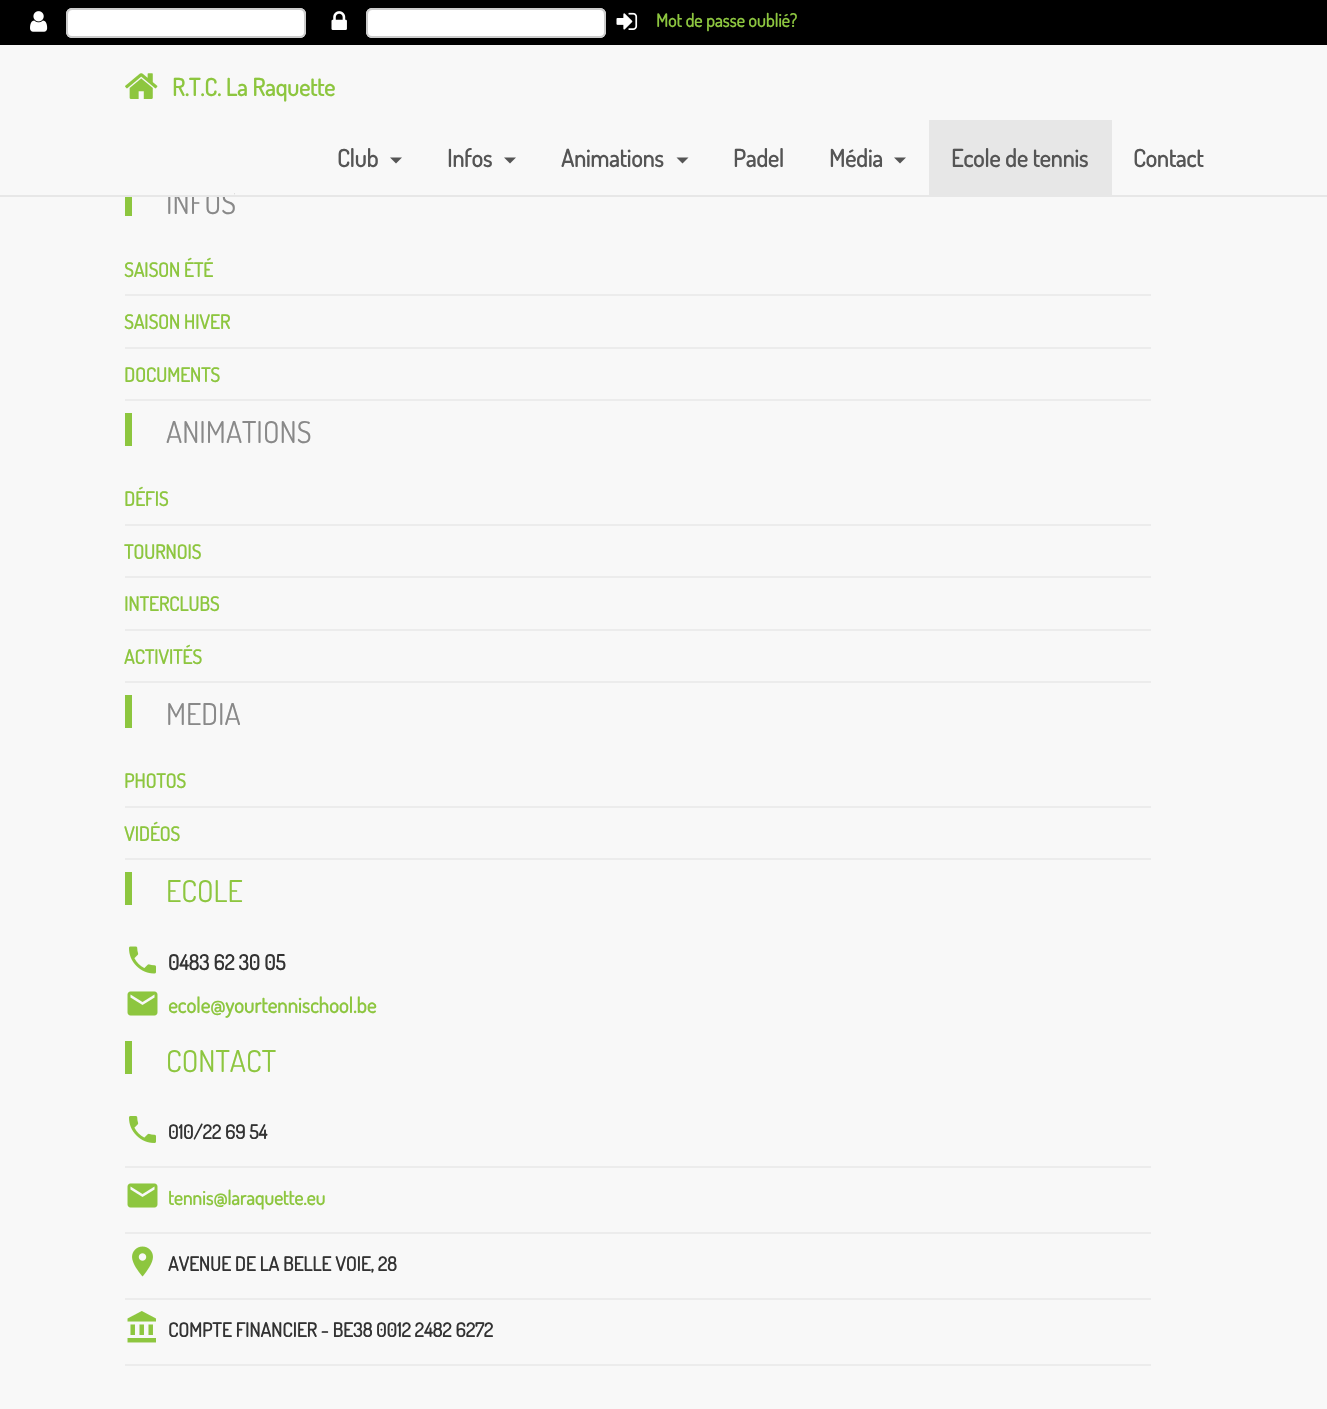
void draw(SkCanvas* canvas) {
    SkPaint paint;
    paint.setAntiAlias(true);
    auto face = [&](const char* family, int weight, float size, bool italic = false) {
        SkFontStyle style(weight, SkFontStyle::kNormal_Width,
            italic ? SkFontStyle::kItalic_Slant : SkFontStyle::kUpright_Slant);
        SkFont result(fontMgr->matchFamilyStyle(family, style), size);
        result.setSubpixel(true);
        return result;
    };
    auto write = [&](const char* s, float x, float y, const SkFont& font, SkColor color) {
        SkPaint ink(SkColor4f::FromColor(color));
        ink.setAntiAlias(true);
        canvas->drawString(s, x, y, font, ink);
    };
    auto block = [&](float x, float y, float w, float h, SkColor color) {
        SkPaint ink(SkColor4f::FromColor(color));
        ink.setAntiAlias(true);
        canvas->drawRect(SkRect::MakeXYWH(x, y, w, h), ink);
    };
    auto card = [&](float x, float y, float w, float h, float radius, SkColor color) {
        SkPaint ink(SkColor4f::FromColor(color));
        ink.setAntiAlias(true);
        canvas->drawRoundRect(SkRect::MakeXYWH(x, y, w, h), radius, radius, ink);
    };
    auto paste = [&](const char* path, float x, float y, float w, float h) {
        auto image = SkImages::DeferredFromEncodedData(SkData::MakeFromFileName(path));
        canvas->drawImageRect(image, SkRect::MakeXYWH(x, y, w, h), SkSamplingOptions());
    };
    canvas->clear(SkColorSetRGB(248, 248, 248));
    block(0, 0, 1327, 45, SK_ColorBLACK);
    paste("pic1.png", 30, 11, 18, 21);
    card(66, 8, 240, 30, 6, SK_ColorWHITE);
    paint.setColor(SkColorSetRGB(236, 236, 236));
    canvas->drawPath(SkPathBuilder().moveTo(72, 10).lineTo(300, 10).cubicTo(305, 10, 304, 18, 304, 21).lineTo(304, 34).cubicTo(305, 33, 305, 32, 305, 31).lineTo(305, 14).cubicTo(305, 11, 303, 9, 300, 9).lineTo(73, 9).cubicTo(70, 9, 68, 11, 68, 14).lineTo(68, 15).cubicTo(68, 13, 70, 10, 72, 10).close().detach(), paint);
    paint.setStyle(SkPaint::kStroke_Style);
    paint.setStrokeWidth(2);
    paint.setColor(SkColorSetRGB(204, 204, 204));
    canvas->drawRoundRect(SkRect::MakeXYWH(67, 9, 238, 28), 5, 5, paint);
    paste("pic2.png", 331, 11, 16, 19);
    card(366, 8, 240, 30, 6, SK_ColorWHITE);
    paint.setStyle(SkPaint::kFill_Style);
    paint.setColor(SkColorSetRGB(236, 236, 236));
    canvas->drawPath(SkPathBuilder().moveTo(372, 10).lineTo(600, 10).cubicTo(605, 10, 604, 18, 604, 21).lineTo(604, 34).cubicTo(605, 33, 605, 32, 605, 31).lineTo(605, 14).cubicTo(605, 11, 603, 9, 600, 9).lineTo(373, 9).cubicTo(370, 9, 368, 11, 368, 14).lineTo(368, 15).cubicTo(368, 13, 370, 10, 372, 10).close().detach(), paint);
    paint.setStyle(SkPaint::kStroke_Style);
    paint.setColor(SkColorSetRGB(204, 204, 204));
    canvas->drawRoundRect(SkRect::MakeXYWH(367, 9, 238, 28), 5, 5, paint);
    paste("pic3.png", 616, 12, 22, 18);
    auto kFont1 = face("Dosis", 700, 18);
    write("Mot de passe oublié?", 656, 27, kFont1, SkColorSetRGB(141, 198, 63));
    auto kFont2 = face("Dosis", 400, 30);
    write("INFOS", 166, 214, kFont2, SkColorSetRGB(137, 137, 137));
    block(168, 192, 66, 3, SkColorSetRGB(248, 248, 248));
    block(0, 195, 1327, 2, SkColorSetRGB(231, 231, 231));
    paste("pic4.png", 125, 73, 33, 26);
    auto kFont3 = face("Dosis", 700, 24);
    write("R.T.C. La Raquette", 172, 96, kFont3, SkColorSetRGB(141, 198, 63));
    write("Club", 337, 167, kFont3, SkColorSetRGB(85, 85, 85));
    paint.setStyle(SkPaint::kFill_Style);
    paint.setColor(SkColorSetRGB(85, 85, 85));
    canvas->drawPath(SkPathBuilder().moveTo(390, 157.5f).lineTo(402, 157.5f).lineTo(396, 163.5f).close().detach(), paint);
    write("Infos", 447, 167, kFont3, SkColorSetRGB(85, 85, 85));
    canvas->drawPath(SkPathBuilder().moveTo(504, 157.5f).lineTo(516, 157.5f).lineTo(510, 163.5f).close().detach(), paint);
    write("Animations", 561, 167, kFont3, SkColorSetRGB(85, 85, 85));
    canvas->drawPath(SkPathBuilder().moveTo(676.5f, 157.5f).lineTo(688.5f, 157.5f).lineTo(682.5f, 163.5f).close().detach(), paint);
    write("Padel", 733, 167, kFont3, SkColorSetRGB(85, 85, 85));
    write("Média", 829, 167, kFont3, SkColorSetRGB(85, 85, 85));
    canvas->drawPath(SkPathBuilder().moveTo(894, 157.5f).lineTo(906, 157.5f).lineTo(900, 163.5f).close().detach(), paint);
    block(929, 120, 183, 75, SkColorSetRGB(231, 231, 231));
    write("Ecole de tennis", 951, 167, kFont3, SkColorSetRGB(85, 85, 85));
    write("Contact", 1133, 167, kFont3, SkColorSetRGB(85, 85, 85));
    block(125, 197, 7, 19, SkColorSetRGB(141, 198, 63));
    block(125, 294, 1026, 2, SkColorSetRGB(236, 236, 236));
    auto kFont4 = face("Dosis", 700, 19.5f);
    write("SAISON ÉTÉ", 124, 277, kFont4, SkColorSetRGB(141, 198, 63));
    block(125, 347, 1026, 2, SkColorSetRGB(236, 236, 236));
    write("SAISON HIVER", 124, 329, kFont4, SkColorSetRGB(141, 198, 63));
    block(125, 399, 1026, 2, SkColorSetRGB(236, 236, 236));
    write("DOCUMENTS", 124, 382, kFont4, SkColorSetRGB(141, 198, 63));
    block(125, 413, 7, 33, SkColorSetRGB(141, 198, 63));
    write("ANIMATIONS", 166, 443, kFont2, SkColorSetRGB(137, 137, 137));
    block(125, 524, 1026, 2, SkColorSetRGB(236, 236, 236));
    write("DÉFIS", 124, 506, kFont4, SkColorSetRGB(141, 198, 63));
    block(125, 576, 1026, 2, SkColorSetRGB(236, 236, 236));
    write("TOURNOIS", 124, 559, kFont4, SkColorSetRGB(141, 198, 63));
    block(125, 629, 1026, 2, SkColorSetRGB(236, 236, 236));
    write("INTERCLUBS", 124, 611, kFont4, SkColorSetRGB(141, 198, 63));
    block(125, 681, 1026, 2, SkColorSetRGB(236, 236, 236));
    write("ACTIVITÉS", 124, 664, kFont4, SkColorSetRGB(141, 198, 63));
    block(125, 695, 7, 33, SkColorSetRGB(141, 198, 63));
    write("MEDIA", 166, 725, kFont2, SkColorSetRGB(137, 137, 137));
    block(125, 806, 1026, 2, SkColorSetRGB(236, 236, 236));
    write("PHOTOS", 124, 788, kFont4, SkColorSetRGB(141, 198, 63));
    block(125, 858, 1026, 2, SkColorSetRGB(236, 236, 236));
    write("VIDÉOS", 124, 841, kFont4, SkColorSetRGB(141, 198, 63));
    block(125, 872, 7, 33, SkColorSetRGB(141, 198, 63));
    write("ECOLE", 166, 902, kFont2, SkColorSetRGB(141, 198, 63));
    paste("pic5.png", 129, 946, 27, 28);
    auto kFont5 = face("Dosis", 700, 21);
    write("0483 62 30 05", 168, 970, kFont5, SkColorSetRGB(51, 51, 51));
    paste("pic6.png", 127, 991, 31, 25);
    write("ecole@yourtennischool.be", 168, 1013, kFont5, SkColorSetRGB(141, 198, 63));
    block(125, 1041, 7, 33, SkColorSetRGB(141, 198, 63));
    write("CONTACT", 166, 1072, kFont2, SkColorSetRGB(141, 198, 63));
    block(125, 1166, 1026, 2, SkColorSetRGB(236, 236, 236));
    paste("pic7.png", 129, 1116, 27, 27);
    write("010/22 69 54", 168, 1139, kFont4, SkColorSetRGB(51, 51, 51));
    block(125, 1232, 1026, 2, SkColorSetRGB(236, 236, 236));
    paste("pic6.png", 127, 1183, 31, 25);
    write("tennis@laraquette.eu", 168, 1205, kFont4, SkColorSetRGB(141, 198, 63));
    block(125, 1298, 1026, 2, SkColorSetRGB(236, 236, 236));
    paste("pic8.png", 132, 1246, 21, 31);
    write("AVENUE DE LA BELLE VOIE, 28", 168, 1271, kFont4, SkColorSetRGB(51, 51, 51));
    block(125, 1364, 1026, 2, SkColorSetRGB(236, 236, 236));
    paste("pic9.png", 127, 1311, 29, 32);
    write("COMPTE FINANCIER - BE38 0012 2482 6272", 168, 1337, kFont4, SkColorSetRGB(51, 51, 51));
}
